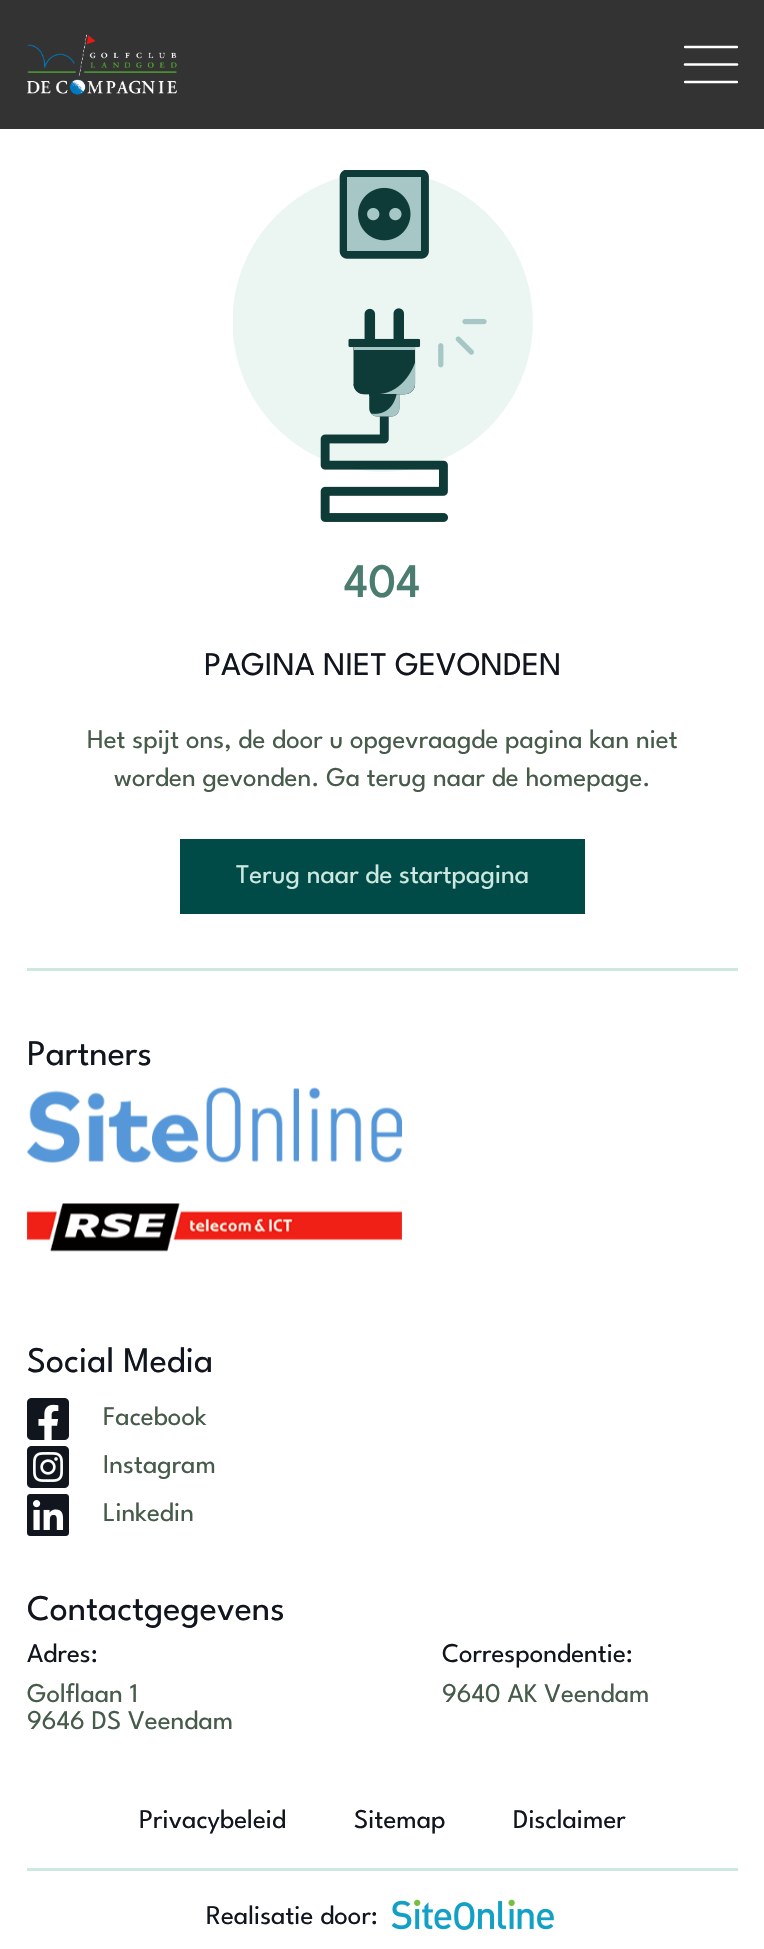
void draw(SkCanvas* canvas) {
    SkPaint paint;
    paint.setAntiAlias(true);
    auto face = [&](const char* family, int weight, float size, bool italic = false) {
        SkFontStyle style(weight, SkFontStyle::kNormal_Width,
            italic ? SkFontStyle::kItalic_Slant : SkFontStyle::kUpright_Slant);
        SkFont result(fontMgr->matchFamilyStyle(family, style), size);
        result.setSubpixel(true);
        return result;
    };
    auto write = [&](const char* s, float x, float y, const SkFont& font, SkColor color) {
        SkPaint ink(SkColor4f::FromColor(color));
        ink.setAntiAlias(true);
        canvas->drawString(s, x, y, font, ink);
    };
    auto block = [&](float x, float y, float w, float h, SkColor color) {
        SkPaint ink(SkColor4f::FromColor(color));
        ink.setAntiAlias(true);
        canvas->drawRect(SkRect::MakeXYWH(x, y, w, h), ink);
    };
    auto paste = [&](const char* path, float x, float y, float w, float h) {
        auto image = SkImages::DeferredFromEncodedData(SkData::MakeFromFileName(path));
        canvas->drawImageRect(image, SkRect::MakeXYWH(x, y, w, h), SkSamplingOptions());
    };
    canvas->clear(SK_ColorWHITE);
    block(0, 0, 764, 129, SkColorSetRGB(51, 51, 51));
    paste("pic1.png", 27, 34, 150, 61);
    paint.setStyle(SkPaint::kStroke_Style);
    paint.setStrokeWidth(2.5f);
    paint.setStrokeCap(SkPaint::kRound_Cap);
    paint.setStrokeJoin(SkPaint::kRound_Join);
    paint.setColor(SK_ColorWHITE);
    canvas->drawPath(SkPathBuilder().moveTo(685, 64.5f).lineTo(737, 64.5f).detach(), paint);
    canvas->save();
    canvas->clipRect(SkRect::MakeXYWH(684, 38, 54, 54));
    canvas->drawPath(SkPathBuilder().moveTo(685, 47).lineTo(737, 47).moveTo(685, 82).lineTo(737, 82).detach(), paint);
    canvas->restore();
    paste("pic2.png", 233, 170, 300, 352);
    auto kFont1 = face("League Spartan", 500, 48);
    write("404", 344, 597, kFont1, SkColorSetRGB(74, 125, 111));
    auto kFont2 = face("League Spartan", 400, 33);
    write("PAGINA NIET GEVONDEN", 204, 675, kFont2, SkColorSetRGB(17, 21, 29));
    auto kFont3 = face("League Spartan", 400, 27);
    write("Het spijt ons, de door u opgevraagde pagina kan niet", 87, 748, kFont3, SkColorSetRGB(70, 91, 73));
    write("worden gevonden. Ga terug naar de homepage.", 114, 786, kFont3, SkColorSetRGB(70, 91, 73));
    block(180, 839, 405, 75, SkColorSetRGB(0, 74, 71));
    write("Terug naar de startpagina", 236, 883, kFont3, SkColorSetRGB(204, 232, 223));
    block(27, 968, 711, 3, SkColorSetRGB(204, 232, 223));
    auto kFont4 = face("League Spartan", 400, 36);
    write("Partners", 27, 1065, kFont4, SkColorSetRGB(17, 21, 29));
    paste("pic3.png", 27, 1087, 375, 76);
    paste("pic4.png", 27, 1203, 375, 49);
    write("Social Media", 27, 1372, kFont4, SkColorSetRGB(17, 21, 29));
    paste("pic5.png", 27, 1398, 42, 42);
    write("Facebook", 103, 1425, kFont3, SkColorSetRGB(70, 91, 73));
    paste("pic6.png", 27, 1446, 42, 42);
    write("Instagram", 103, 1473, kFont3, SkColorSetRGB(70, 91, 73));
    paste("pic7.png", 27, 1494, 42, 42);
    write("Linkedin", 103, 1521, kFont3, SkColorSetRGB(70, 91, 73));
    write("Contactgegevens", 27, 1620, kFont4, SkColorSetRGB(17, 21, 29));
    write("Adres:", 27, 1662, kFont3, SkColorSetRGB(17, 21, 29));
    write("Golflaan 1", 27, 1702, kFont3, SkColorSetRGB(70, 91, 73));
    write("9646 DS Veendam", 27, 1729, kFont3, SkColorSetRGB(70, 91, 73));
    write("Correspondentie:", 442, 1662, kFont3, SkColorSetRGB(17, 21, 29));
    write("9640 AK Veendam", 442, 1702, kFont3, SkColorSetRGB(70, 91, 73));
    write("Privacybeleid", 139, 1828, kFont3, SkColorSetRGB(17, 21, 29));
    write("Sitemap", 354, 1828, kFont3, SkColorSetRGB(17, 21, 29));
    write("Disclaimer", 513, 1828, kFont3, SkColorSetRGB(17, 21, 29));
    block(27, 1868, 711, 3, SkColorSetRGB(204, 232, 223));
    write("Realisatie door:", 206, 1924, kFont3, SkColorSetRGB(17, 21, 29));
    paste("pic8.png", 392, 1899, 162, 31);
}
